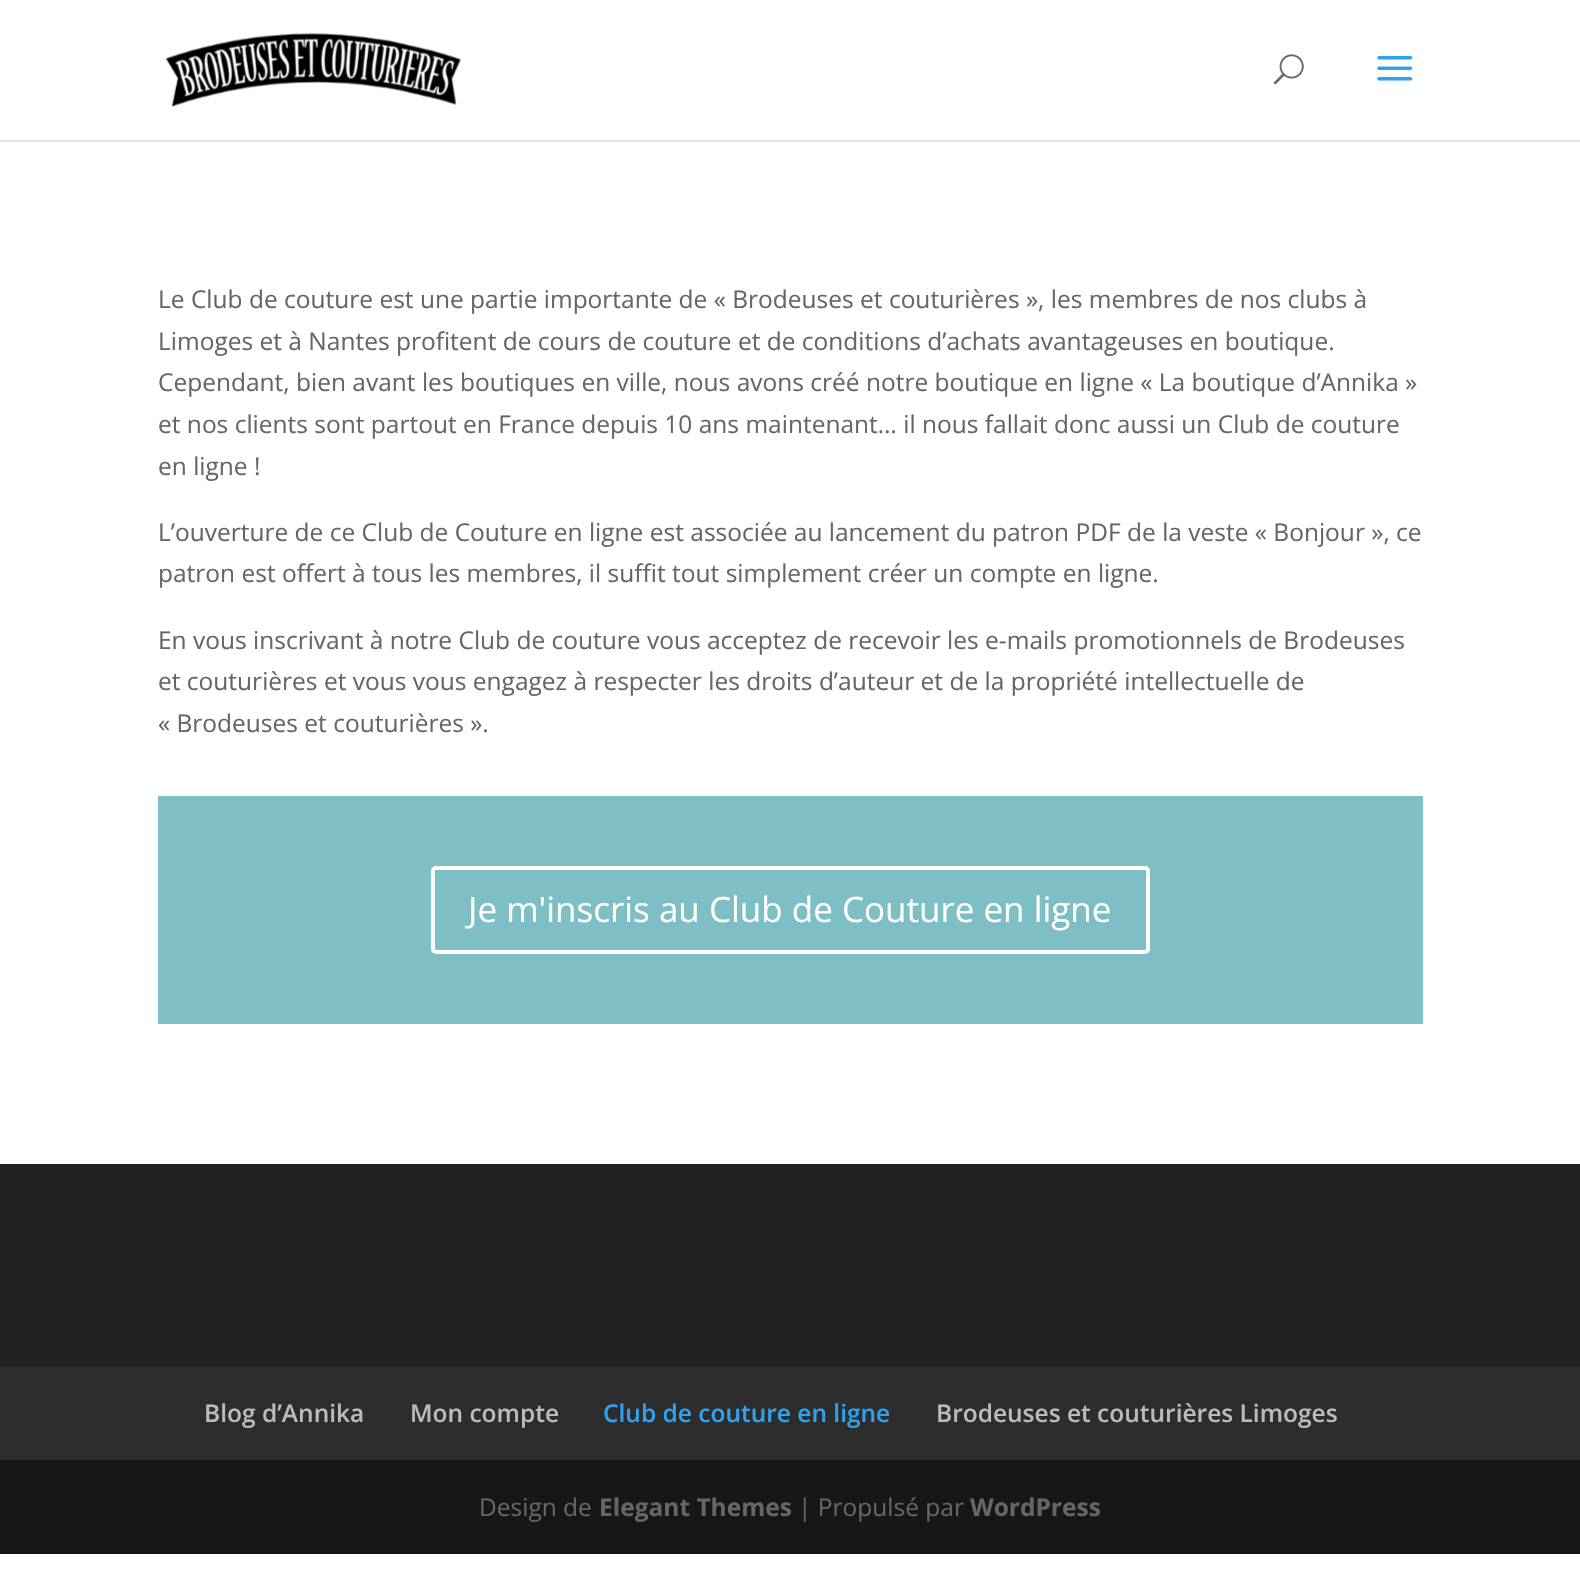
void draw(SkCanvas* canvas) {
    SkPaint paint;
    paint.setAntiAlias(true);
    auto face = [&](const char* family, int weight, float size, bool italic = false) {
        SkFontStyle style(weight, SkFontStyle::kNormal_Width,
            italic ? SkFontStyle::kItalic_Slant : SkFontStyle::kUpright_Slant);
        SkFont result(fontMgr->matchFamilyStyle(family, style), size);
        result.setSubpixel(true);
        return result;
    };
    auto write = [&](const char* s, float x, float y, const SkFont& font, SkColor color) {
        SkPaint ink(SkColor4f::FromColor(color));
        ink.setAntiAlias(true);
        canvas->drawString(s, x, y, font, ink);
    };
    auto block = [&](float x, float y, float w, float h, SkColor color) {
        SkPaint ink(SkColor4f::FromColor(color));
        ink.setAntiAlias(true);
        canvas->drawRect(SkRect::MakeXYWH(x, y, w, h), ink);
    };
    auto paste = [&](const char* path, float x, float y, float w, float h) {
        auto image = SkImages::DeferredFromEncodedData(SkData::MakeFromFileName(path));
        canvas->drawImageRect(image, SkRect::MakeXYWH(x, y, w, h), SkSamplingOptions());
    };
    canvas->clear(SK_ColorWHITE);
    block(0, 140, 1580, 2, SkColorSetRGB(230, 230, 230));
    paste("pic1.png", 165, 33, 296, 74);
    paste("pic2.png", 1273, 54, 31, 31);
    paste("pic3.png", 1377, 56, 36, 25);
    auto kFont1 = face("Open Sans", 400, 24.5f);
    write("Le Club de couture est une partie importante de « Brodeuses et couturières », les membres de nos clubs à", 158, 308, kFont1, SkColorSetRGB(102, 102, 102));
    write("Limoges et à Nantes profitent de cours de couture et de conditions d’achats avantageuses en boutique.", 158, 350, kFont1, SkColorSetRGB(102, 102, 102));
    write("Cependant, bien avant les boutiques en ville, nous avons créé notre boutique en ligne « La boutique d’Annika »", 158, 391, kFont1, SkColorSetRGB(102, 102, 102));
    write("et nos clients sont partout en France depuis 10 ans maintenant… il nous fallait donc aussi un Club de couture", 158, 433, kFont1, SkColorSetRGB(102, 102, 102));
    write("en ligne !", 158, 475, kFont1, SkColorSetRGB(102, 102, 102));
    write("L’ouverture de ce Club de Couture en ligne est associée au lancement du patron PDF de la veste « Bonjour », ce", 158, 541, kFont1, SkColorSetRGB(102, 102, 102));
    write("patron est offert à tous les membres, il suffit tout simplement créer un compte en ligne.", 158, 582, kFont1, SkColorSetRGB(102, 102, 102));
    write("En vous inscrivant à notre Club de couture vous acceptez de recevoir les e-mails promotionnels de Brodeuses", 158, 649, kFont1, SkColorSetRGB(102, 102, 102));
    write("et couturières et vous vous engagez à respecter les droits d’auteur et de la propriété intellectuelle de", 158, 690, kFont1, SkColorSetRGB(102, 102, 102));
    write("« Brodeuses et couturières ».", 158, 732, kFont1, SkColorSetRGB(102, 102, 102));
    block(158, 796, 1265, 228, SkColorSetRGB(126, 190, 197));
    paint.setStyle(SkPaint::kStroke_Style);
    paint.setStrokeWidth(4);
    paint.setColor(SK_ColorWHITE);
    canvas->drawRoundRect(SkRect::MakeXYWH(433, 868, 715, 84), 3, 3, paint);
    auto kFont2 = face("Open Sans", 400, 35);
    write("Je m'inscris au Club de Couture en ligne", 468, 922, kFont2, SK_ColorWHITE);
    block(0, 1164, 1580, 203, SkColorSetRGB(34, 34, 34));
    block(0, 1367, 1580, 93, SkColorSetRGB(45, 45, 45));
    auto kFont3 = face("Open Sans", 600, 24.5f);
    write("Blog d’Annika", 204, 1422, kFont3, SkColorSetRGB(187, 187, 187));
    write("Mon compte", 410, 1422, kFont3, SkColorSetRGB(187, 187, 187));
    write("Club de couture en ligne", 603, 1422, kFont3, SkColorSetRGB(46, 163, 242));
    write("Brodeuses et couturières Limoges", 936, 1422, kFont3, SkColorSetRGB(187, 187, 187));
    block(0, 1460, 1580, 94, SkColorSetRGB(23, 23, 23));
    write("Design de", 479, 1516, kFont1, SkColorSetRGB(102, 102, 102));
    auto kFont4 = face("Open Sans", 700, 24.5f);
    write("Elegant Themes", 599, 1516, kFont4, SkColorSetRGB(102, 102, 102));
    write("| Propulsé par", 798, 1516, kFont1, SkColorSetRGB(102, 102, 102));
    write("WordPress", 970, 1516, kFont4, SkColorSetRGB(102, 102, 102));
}
